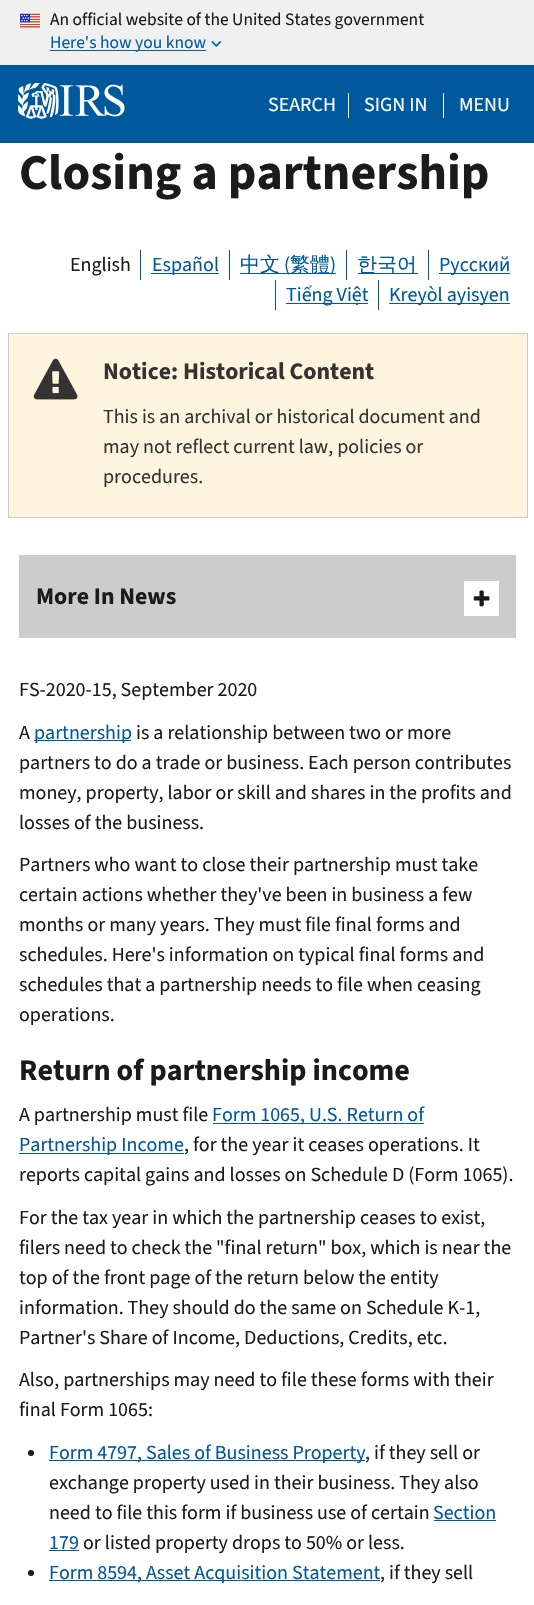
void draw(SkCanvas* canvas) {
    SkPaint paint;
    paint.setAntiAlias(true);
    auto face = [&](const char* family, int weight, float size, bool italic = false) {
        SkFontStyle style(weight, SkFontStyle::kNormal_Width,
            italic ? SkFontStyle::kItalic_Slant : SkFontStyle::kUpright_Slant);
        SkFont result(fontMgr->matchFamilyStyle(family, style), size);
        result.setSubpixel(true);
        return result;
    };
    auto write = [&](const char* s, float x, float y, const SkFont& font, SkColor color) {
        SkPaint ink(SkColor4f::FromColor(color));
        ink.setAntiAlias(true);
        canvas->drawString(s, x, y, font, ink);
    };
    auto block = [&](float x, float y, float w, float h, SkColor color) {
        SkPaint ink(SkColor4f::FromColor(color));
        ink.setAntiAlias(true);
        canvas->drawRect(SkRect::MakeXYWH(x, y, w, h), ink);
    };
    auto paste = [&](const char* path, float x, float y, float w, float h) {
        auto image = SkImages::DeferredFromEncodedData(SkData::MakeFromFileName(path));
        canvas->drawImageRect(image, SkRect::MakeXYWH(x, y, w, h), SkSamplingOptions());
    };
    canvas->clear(SK_ColorWHITE);
    block(0, 0, 534, 65, SkColorSetRGB(240, 240, 240));
    paste("pic1.png", 20, 13, 20, 15);
    auto kFont1 = face("Source Sans 3", 400, 17.5f);
    write("An official website of the United States government", 50, 25, kFont1, SkColorSetRGB(27, 27, 27));
    block(50, 50, 156, 1, SkColorSetRGB(0, 94, 162));
    write("Here's how you know", 50, 48, kFont1, SkColorSetRGB(0, 94, 162));
    paste("pic2.png", 211, 41, 11, 6);
    block(0, 65, 534, 78, SkColorSetRGB(0, 89, 156));
    paste("pic3.png", 18, 83, 107, 36);
    block(348, 93, 1, 25, SK_ColorWHITE);
    auto kFont2 = face("Source Sans 3", 400, 20);
    write("SEARCH", 268, 111, kFont2, SK_ColorWHITE);
    block(443, 93, 1, 25, SK_ColorWHITE);
    write("SIGN IN", 364, 111, kFont2, SK_ColorWHITE);
    write("MENU", 459, 111, kFont2, SK_ColorWHITE);
    auto kFont3 = face("Source Sans 3", 700, 50);
    write("Closing a partnership", 19, 189, kFont3, SkColorSetRGB(27, 27, 27));
    write("English", 70, 271, kFont2, SkColorSetRGB(27, 27, 27));
    block(140, 250, 1, 30, SkColorSetRGB(0, 89, 156));
    block(151, 273, 68, 1, SkColorSetRGB(0, 89, 156));
    write("Español", 152, 271, kFont2, SkColorSetRGB(0, 89, 156));
    block(229, 250, 1, 30, SkColorSetRGB(0, 89, 156));
    block(240, 273, 96, 1, SkColorSetRGB(0, 89, 156));
    auto kFont4 = face("WenQuanYi Zen Hei", 500, 20);
    write("中文", 240, 271, kFont4, SkColorSetRGB(0, 89, 156));
    write("(", 284, 271, kFont2, SkColorSetRGB(0, 89, 156));
    write("繁體", 290, 271, kFont4, SkColorSetRGB(0, 89, 156));
    write(")", 330, 271, kFont2, SkColorSetRGB(0, 89, 156));
    block(346, 250, 1, 30, SkColorSetRGB(0, 89, 156));
    block(358, 273, 60, 1, SkColorSetRGB(0, 89, 156));
    write("한국어", 357, 271, kFont4, SkColorSetRGB(0, 89, 156));
    block(428, 250, 1, 30, SkColorSetRGB(0, 89, 156));
    block(439, 273, 71, 1, SkColorSetRGB(0, 89, 156));
    write("Русский", 439, 271, kFont2, SkColorSetRGB(0, 89, 156));
    block(275, 280, 1, 30, SkColorSetRGB(0, 89, 156));
    block(286, 303, 82, 1, SkColorSetRGB(0, 89, 156));
    write("Tiếng Việt", 286, 301, kFont2, SkColorSetRGB(0, 89, 156));
    block(378, 280, 1, 30, SkColorSetRGB(0, 89, 156));
    block(389, 303, 121, 1, SkColorSetRGB(0, 89, 156));
    write("Kreyòl ayisyen", 389, 301, kFont2, SkColorSetRGB(0, 89, 156));
    paint.setColor(SkColorSetRGB(255, 244, 221));
    canvas->drawRect(SkRect::MakeXYWH(8.5f, 333.5f, 519, 184), paint);
    paint.setStyle(SkPaint::kStroke_Style);
    paint.setStrokeWidth(1);
    paint.setColor(SkColorSetRGB(204, 204, 204));
    canvas->drawRect(SkRect::MakeXYWH(8.5f, 333.5f, 519, 184), paint);
    paste("pic4.png", 33, 358, 45, 42);
    auto kFont5 = face("Source Sans 3", 700, 23.75f);
    write("Notice: Historical Content", 103, 379, kFont5, SkColorSetRGB(51, 51, 51));
    write("This is an archival or historical document and", 103, 423, kFont2, SkColorSetRGB(51, 51, 51));
    write("may not reflect current law, policies or", 103, 453, kFont2, SkColorSetRGB(51, 51, 51));
    write("procedures.", 103, 483, kFont2, SkColorSetRGB(51, 51, 51));
    block(19, 555, 497, 83, SkColorSetRGB(204, 204, 204));
    write("More In News", 36, 604, kFont5, SkColorSetRGB(27, 27, 27));
    block(464, 581, 35, 35, SK_ColorWHITE);
    paste("pic5.png", 473, 590, 17, 17);
    write("FS-2020-15, September 2020", 19, 696, kFont2, SkColorSetRGB(27, 27, 27));
    write("A", 19, 739, kFont2, SkColorSetRGB(27, 27, 27));
    block(34, 740, 97, 1, SkColorSetRGB(0, 89, 156));
    write("partnership", 34, 739, kFont2, SkColorSetRGB(0, 89, 156));
    write("is a relationship between two or more", 136, 739, kFont2, SkColorSetRGB(27, 27, 27));
    write("partners to do a trade or business. Each person contributes", 19, 769, kFont2, SkColorSetRGB(27, 27, 27));
    write("money, property, labor or skill and shares in the profits and", 19, 799, kFont2, SkColorSetRGB(27, 27, 27));
    write("losses of the business.", 19, 829, kFont2, SkColorSetRGB(27, 27, 27));
    write("Partners who want to close their partnership must take", 19, 871, kFont2, SkColorSetRGB(27, 27, 27));
    write("certain actions whether they've been in business a few", 19, 901, kFont2, SkColorSetRGB(27, 27, 27));
    write("months or many years. They must file final forms and", 19, 931, kFont2, SkColorSetRGB(27, 27, 27));
    write("schedules. Here's information on typical final forms and", 19, 961, kFont2, SkColorSetRGB(27, 27, 27));
    write("schedules that a partnership needs to file when ceasing", 19, 991, kFont2, SkColorSetRGB(27, 27, 27));
    write("operations.", 19, 1021, kFont2, SkColorSetRGB(27, 27, 27));
    auto kFont6 = face("Source Sans 3", 700, 30);
    write("Return of partnership income", 19, 1080, kFont6, SkColorSetRGB(27, 27, 27));
    write("A partnership must file", 19, 1121, kFont2, SkColorSetRGB(27, 27, 27));
    block(213, 1123, 211, 1, SkColorSetRGB(0, 89, 156));
    write("Form 1065, U.S. Return of", 212, 1121, kFont2, SkColorSetRGB(0, 89, 156));
    block(19, 1153, 165, 1, SkColorSetRGB(0, 89, 156));
    write("Partnership Income", 19, 1151, kFont2, SkColorSetRGB(0, 89, 156));
    write(", for the year it ceases operations. It", 184, 1151, kFont2, SkColorSetRGB(27, 27, 27));
    write("reports capital gains and losses on Schedule D (Form 1065).", 19, 1181, kFont2, SkColorSetRGB(27, 27, 27));
    write("For the tax year in which the partnership ceases to exist,", 19, 1224, kFont2, SkColorSetRGB(27, 27, 27));
    write("filers need to check the \"final return\" box, which is near the", 19, 1254, kFont2, SkColorSetRGB(27, 27, 27));
    write("top of the front page of the return below the entity", 19, 1284, kFont2, SkColorSetRGB(27, 27, 27));
    write("information. They should do the same on Schedule K-1,", 19, 1314, kFont2, SkColorSetRGB(27, 27, 27));
    write("Partner's Share of Income, Deductions, Credits, etc.", 19, 1344, kFont2, SkColorSetRGB(27, 27, 27));
    write("Also, partnerships may need to file these forms with their", 19, 1386, kFont2, SkColorSetRGB(27, 27, 27));
    write("final Form 1065:", 19, 1416, kFont2, SkColorSetRGB(27, 27, 27));
    paint.setStyle(SkPaint::kFill_Style);
    paint.setColor(SkColorSetRGB(27, 27, 27));
    canvas->drawCircle(31, 1453, 3, paint);
    block(49, 1460, 316, 1, SkColorSetRGB(0, 89, 156));
    write("Form 4797, Sales of Business Property", 49, 1459, kFont2, SkColorSetRGB(0, 89, 156));
    write(", if they sell or", 365, 1459, kFont2, SkColorSetRGB(27, 27, 27));
    write("exchange property used in their business. They also", 49, 1489, kFont2, SkColorSetRGB(27, 27, 27));
    write("need to file this form if business use of certain", 49, 1519, kFont2, SkColorSetRGB(27, 27, 27));
    write("Section", 433, 1519, kFont2, SkColorSetRGB(0, 89, 156));
    block(434, 1520, 62, 1, SkColorSetRGB(0, 89, 156));
    write("179", 49, 1549, kFont2, SkColorSetRGB(0, 89, 156));
    block(49, 1550, 30, 1, SkColorSetRGB(0, 89, 156));
    write("or listed property drops to 50% or less.", 83, 1549, kFont2, SkColorSetRGB(27, 27, 27));
    canvas->drawCircle(31, 1573, 3, paint);
    block(49, 1580, 331, 1, SkColorSetRGB(0, 89, 156));
    write("Form 8594, Asset Acquisition Statement", 49, 1579, kFont2, SkColorSetRGB(0, 89, 156));
    write(", if they sell", 380, 1579, kFont2, SkColorSetRGB(27, 27, 27));
}
